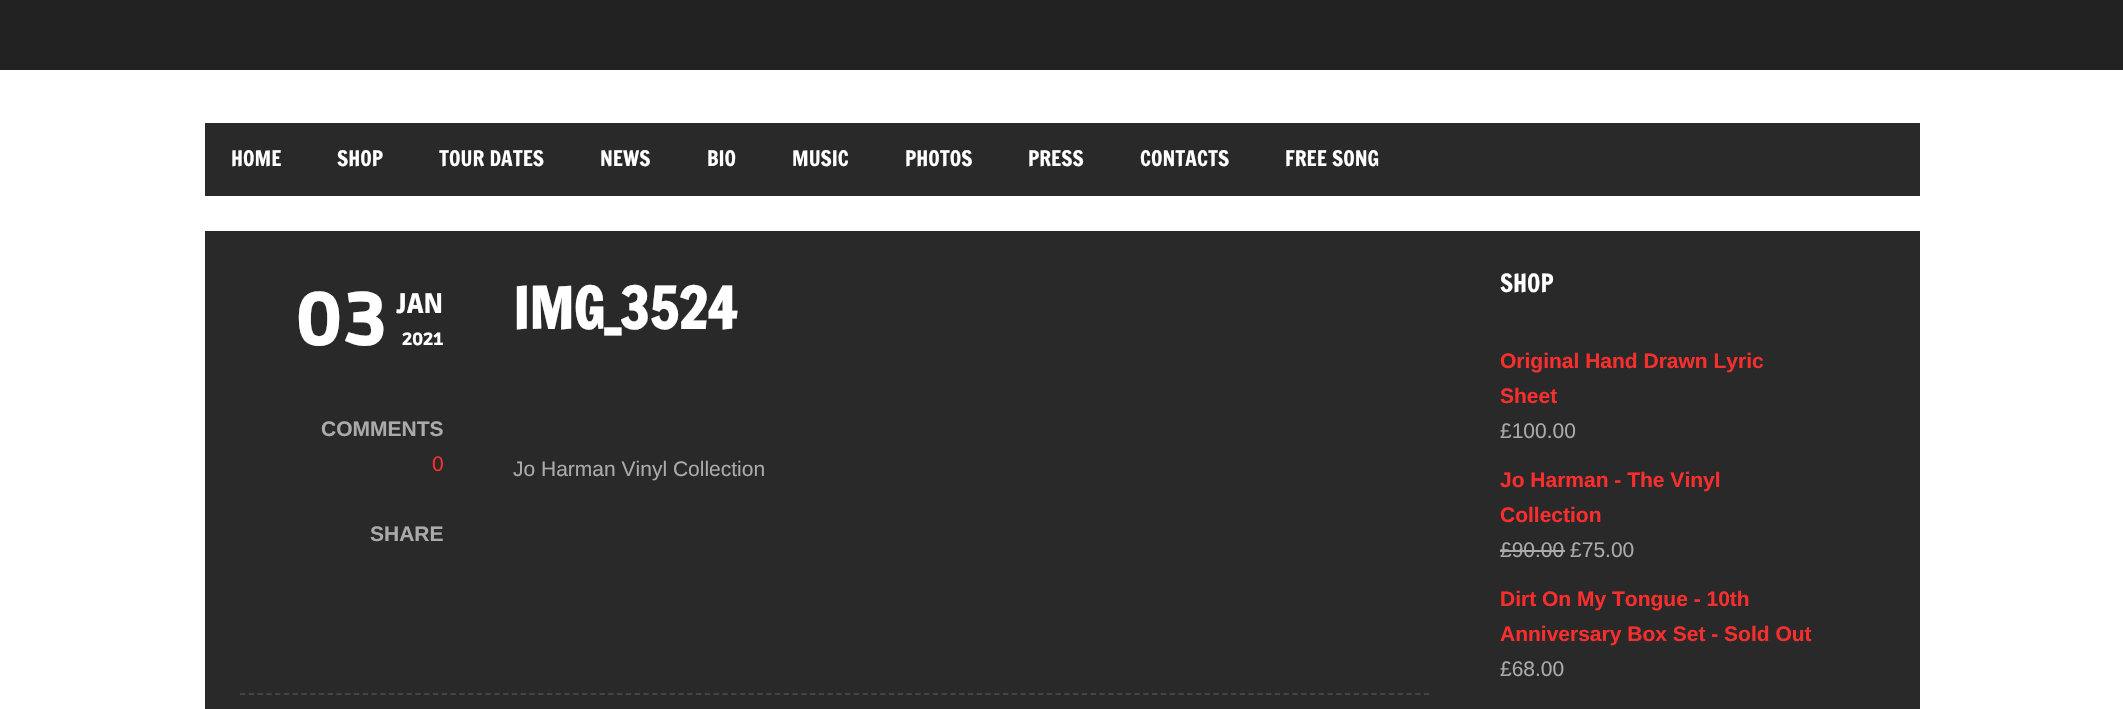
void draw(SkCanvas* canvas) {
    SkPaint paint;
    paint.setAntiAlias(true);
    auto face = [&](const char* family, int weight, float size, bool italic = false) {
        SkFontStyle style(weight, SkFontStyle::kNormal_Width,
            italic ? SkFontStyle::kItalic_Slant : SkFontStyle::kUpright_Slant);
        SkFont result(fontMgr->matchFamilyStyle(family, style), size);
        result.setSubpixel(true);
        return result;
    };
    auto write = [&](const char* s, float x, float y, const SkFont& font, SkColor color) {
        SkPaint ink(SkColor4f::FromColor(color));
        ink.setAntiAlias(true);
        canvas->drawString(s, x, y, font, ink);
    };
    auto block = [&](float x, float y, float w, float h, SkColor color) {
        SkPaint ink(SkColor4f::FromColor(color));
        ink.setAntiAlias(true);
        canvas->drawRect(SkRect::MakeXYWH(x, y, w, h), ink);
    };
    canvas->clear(SK_ColorWHITE);
    block(0, 0, 2123, 70, SkColorSetRGB(34, 34, 34));
    block(205, 123, 1715, 73, SkColorSetRGB(41, 41, 41));
    auto kFont1 = face("Francois One", 400, 21);
    write("HOME", 231, 166, kFont1, SK_ColorWHITE);
    write("SHOP", 337, 166, kFont1, SK_ColorWHITE);
    write("TOUR DATES", 439, 166, kFont1, SK_ColorWHITE);
    write("NEWS", 600, 166, kFont1, SK_ColorWHITE);
    write("BIO", 707, 166, kFont1, SK_ColorWHITE);
    write("MUSIC", 792, 166, kFont1, SK_ColorWHITE);
    write("PHOTOS", 905, 166, kFont1, SK_ColorWHITE);
    write("PRESS", 1028, 166, kFont1, SK_ColorWHITE);
    write("CONTACTS", 1140, 166, kFont1, SK_ColorWHITE);
    write("FREE SONG", 1285, 166, kFont1, SK_ColorWHITE);
    block(205, 231, 1715, 478, SkColorSetRGB(41, 41, 41));
    auto kFont2 = face("Ruda", 900, 75);
    write("03", 296, 345, kFont2, SK_ColorWHITE);
    auto kFont3 = face("Ruda", 900, 28);
    write("JAN", 397, 313, kFont3, SK_ColorWHITE);
    auto kFont4 = face("Ruda", 900, 17.5f);
    write("2021", 402, 345, kFont4, SK_ColorWHITE);
    auto kFont5 = face("Liberation Sans", 700, 21);
    write("COMMENTS", 321, 436, kFont5, SkColorSetRGB(170, 170, 170));
    auto kFont6 = face("Liberation Sans", 400, 21);
    write("0", 432, 471, kFont6, SkColorSetRGB(251, 46, 46));
    write("SHARE", 370, 541, kFont5, SkColorSetRGB(170, 170, 170));
    auto kFont7 = face("Francois One", 700, 56);
    write("IMG_3524", 513, 329, kFont7, SK_ColorWHITE);
    write("Jo Harman Vinyl Collection", 513, 476, kFont6, SkColorSetRGB(170, 170, 170));
    paint.setStyle(SkPaint::kStroke_Style);
    paint.setStrokeWidth(1.8f);
    paint.setColor(SkColorSetRGB(68, 68, 68));
    paint.setPathEffect(SkDashPathEffect::Make({{5.25f, 3.52f}}, 0));
    canvas->drawPath(SkPathBuilder().moveTo(240, 694).lineTo(1430, 694).detach(), paint);
    paint.setPathEffect(nullptr);
    auto kFont8 = face("Francois One", 400, 24.5f);
    write("SHOP", 1500, 292, kFont8, SK_ColorWHITE);
    write("Original Hand Drawn Lyric", 1500, 368, kFont5, SkColorSetRGB(251, 46, 46));
    write("Sheet", 1500, 403, kFont5, SkColorSetRGB(251, 46, 46));
    write("£100.00", 1500, 438, kFont6, SkColorSetRGB(170, 170, 170));
    write("Jo Harman - The Vinyl", 1500, 487, kFont5, SkColorSetRGB(251, 46, 46));
    write("Collection", 1500, 522, kFont5, SkColorSetRGB(251, 46, 46));
    write("£90.00 £75.00", 1500, 557, kFont6, SkColorSetRGB(170, 170, 170));
    block(1500, 550, 65, 2, SkColorSetRGB(170, 170, 170));
    write("Dirt On My Tongue - 10th", 1500, 606, kFont5, SkColorSetRGB(251, 46, 46));
    write("Anniversary Box Set - Sold Out", 1500, 641, kFont5, SkColorSetRGB(251, 46, 46));
    write("£68.00", 1500, 676, kFont6, SkColorSetRGB(170, 170, 170));
}
